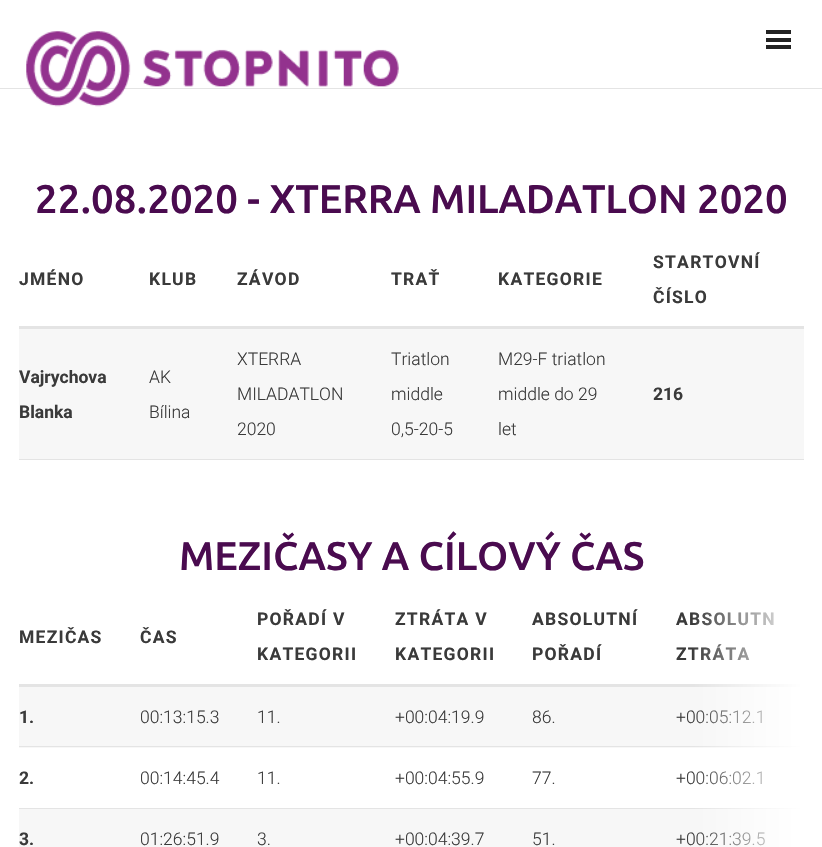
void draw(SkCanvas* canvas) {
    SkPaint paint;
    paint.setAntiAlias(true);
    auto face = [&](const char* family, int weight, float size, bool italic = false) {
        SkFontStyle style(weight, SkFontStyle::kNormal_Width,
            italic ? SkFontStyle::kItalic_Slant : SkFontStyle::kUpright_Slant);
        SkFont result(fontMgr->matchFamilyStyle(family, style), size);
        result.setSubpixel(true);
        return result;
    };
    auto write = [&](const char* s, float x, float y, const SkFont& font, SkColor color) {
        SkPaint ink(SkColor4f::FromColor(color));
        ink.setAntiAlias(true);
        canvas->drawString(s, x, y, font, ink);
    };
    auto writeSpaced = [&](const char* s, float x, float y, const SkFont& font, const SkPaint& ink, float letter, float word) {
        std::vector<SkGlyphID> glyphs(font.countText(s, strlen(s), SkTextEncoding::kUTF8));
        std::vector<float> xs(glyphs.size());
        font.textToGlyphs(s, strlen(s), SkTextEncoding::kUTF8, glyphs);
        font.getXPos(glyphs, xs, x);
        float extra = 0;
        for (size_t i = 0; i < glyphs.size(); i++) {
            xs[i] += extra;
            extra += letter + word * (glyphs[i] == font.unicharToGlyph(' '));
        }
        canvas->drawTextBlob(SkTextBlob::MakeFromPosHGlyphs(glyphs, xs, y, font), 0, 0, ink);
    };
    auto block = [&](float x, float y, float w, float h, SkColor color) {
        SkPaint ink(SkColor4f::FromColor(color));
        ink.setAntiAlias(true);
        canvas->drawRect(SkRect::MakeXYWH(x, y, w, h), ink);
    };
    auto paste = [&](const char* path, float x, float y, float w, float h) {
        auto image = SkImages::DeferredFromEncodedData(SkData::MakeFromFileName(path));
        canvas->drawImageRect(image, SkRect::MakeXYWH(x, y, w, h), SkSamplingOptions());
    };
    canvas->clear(SK_ColorWHITE);
    block(0, 88, 822, 1, SkColorSetRGB(228, 228, 228));
    paste("pic1.png", 26, 31, 373, 76);
    block(766, 38, 25, 4, SkColorSetRGB(34, 34, 34));
    block(766, 30, 25, 4, SkColorSetRGB(34, 34, 34));
    block(766, 45, 25, 4, SkColorSetRGB(34, 34, 34));
    auto kFont1 = face("Ubuntu", 500, 40);
    write("22.08.2020 - XTERRA MILADATLON 2020", 35, 213, kFont1, SkColorSetRGB(74, 11, 79));
    block(19, 459, 785, 1, SkColorSetRGB(228, 228, 228));
    auto kFont2 = face("Roboto", 700, 17.5f);
    paint.setColor(SkColorSetRGB(58, 58, 58));
    writeSpaced("JMÉNO", 19, 285, kFont2, paint, 1.25f, 0);
    writeSpaced("KLUB", 149, 285, kFont2, paint, 1.25f, 0);
    writeSpaced("ZÁVOD", 237, 285, kFont2, paint, 1.25f, 0);
    writeSpaced("TRAŤ", 391, 285, kFont2, paint, 1.25f, 0);
    writeSpaced("KATEGORIE", 498, 285, kFont2, paint, 1.25f, 0);
    block(19, 326, 785, 3, SkColorSetRGB(228, 228, 228));
    writeSpaced("STARTOVNÍ", 653, 268, kFont2, paint, 1.25f, 0);
    writeSpaced("ČÍSLO", 653, 303, kFont2, paint, 1.25f, 0);
    block(19, 329, 785, 130, SkColorSetRGB(247, 247, 247));
    write("Vajrychova", 19, 383, kFont2, SkColorSetRGB(58, 58, 58));
    write("Blanka", 19, 418, kFont2, SkColorSetRGB(58, 58, 58));
    auto kFont3 = face("Roboto", 300, 17.5f);
    write("AK", 149, 383, kFont3, SkColorSetRGB(58, 58, 58));
    write("Bílina", 149, 418, kFont3, SkColorSetRGB(58, 58, 58));
    write("XTERRA", 237, 365, kFont3, SkColorSetRGB(58, 58, 58));
    write("MILADATLON", 237, 400, kFont3, SkColorSetRGB(58, 58, 58));
    write("2020", 237, 435, kFont3, SkColorSetRGB(58, 58, 58));
    write("Triatlon", 391, 365, kFont3, SkColorSetRGB(58, 58, 58));
    write("middle", 391, 400, kFont3, SkColorSetRGB(58, 58, 58));
    write("0,5-20-5", 391, 435, kFont3, SkColorSetRGB(58, 58, 58));
    write("M29-F triatlon", 498, 365, kFont3, SkColorSetRGB(58, 58, 58));
    write("middle do 29", 498, 400, kFont3, SkColorSetRGB(58, 58, 58));
    write("let", 498, 435, kFont3, SkColorSetRGB(58, 58, 58));
    write("216", 653, 400, kFont2, SkColorSetRGB(58, 58, 58));
    write("MEZIČASY A CÍLOVÝ ČAS", 179, 570, kFont1, SkColorSetRGB(74, 11, 79));
    writeSpaced("MEZIČAS", 19, 643, kFont2, paint, 1.25f, 0);
    writeSpaced("ČAS", 140, 643, kFont2, paint, 1.25f, 0);
    writeSpaced("POŘADÍ V", 257, 625, kFont2, paint, 1.25f, 0);
    writeSpaced("KATEGORII", 257, 660, kFont2, paint, 1.25f, 0);
    writeSpaced("ZTRÁTA V", 395, 625, kFont2, paint, 1.25f, 0);
    writeSpaced("KATEGORII", 395, 660, kFont2, paint, 1.25f, 0);
    writeSpaced("ABSOLUTNÍ", 532, 625, kFont2, paint, 1.25f, 0);
    writeSpaced("POŘADÍ", 532, 660, kFont2, paint, 1.25f, 0);
    block(19, 684, 785, 3, SkColorSetRGB(228, 228, 228));
    writeSpaced("ABSOLUTN", 676, 625, kFont2, paint, 1.25f, 0);
    writeSpaced("ZTRÁTA", 676, 660, kFont2, paint, 1.25f, 0);
    block(19, 687, 784, 61, SkColorSetRGB(247, 247, 247));
    write("1.", 19, 723, kFont2, SkColorSetRGB(58, 58, 58));
    write("00:13:15.3", 140, 723, kFont3, SkColorSetRGB(58, 58, 58));
    write("11.", 257, 723, kFont3, SkColorSetRGB(58, 58, 58));
    write("+00:04:19.9", 395, 723, kFont3, SkColorSetRGB(58, 58, 58));
    write("86.", 532, 723, kFont3, SkColorSetRGB(58, 58, 58));
    write("+00:05:12.1", 676, 723, kFont3, SkColorSetRGB(58, 58, 58));
    write("2.", 19, 784, kFont2, SkColorSetRGB(58, 58, 58));
    write("00:14:45.4", 140, 784, kFont3, SkColorSetRGB(58, 58, 58));
    write("11.", 257, 784, kFont3, SkColorSetRGB(58, 58, 58));
    write("+00:04:55.9", 395, 784, kFont3, SkColorSetRGB(58, 58, 58));
    write("77.", 532, 784, kFont3, SkColorSetRGB(58, 58, 58));
    block(19, 746, 785, 1, SkColorSetRGB(228, 228, 228));
    write("+00:06:02.1", 676, 784, kFont3, SkColorSetRGB(58, 58, 58));
    block(19, 809, 784, 38, SkColorSetRGB(247, 247, 247));
    write("3.", 19, 845, kFont2, SkColorSetRGB(58, 58, 58));
    write("01:26:51.9", 140, 845, kFont3, SkColorSetRGB(58, 58, 58));
    write("3.", 257, 845, kFont3, SkColorSetRGB(58, 58, 58));
    write("+00:04:39.7", 395, 845, kFont3, SkColorSetRGB(58, 58, 58));
    write("51.", 532, 845, kFont3, SkColorSetRGB(58, 58, 58));
    block(19, 808, 785, 1, SkColorSetRGB(228, 228, 228));
    write("+00:21:39.5", 676, 845, kFont3, SkColorSetRGB(58, 58, 58));
    {
        const SkColor colors[] = {SkColorSetARGB(0, 255, 255, 255), SK_ColorWHITE};
        const float stops[] = {0, 1};
        const SkPoint ends[] = {{691, 791}, {804, 791}};
        paint.setShader(SkGradientShader::MakeLinear(ends, colors, stops, 2, SkTileMode::kClamp));
        paint.setAlpha(255);
    }
    canvas->drawRect(SkRect::MakeXYWH(693, 612, 111, 235), paint);
}
